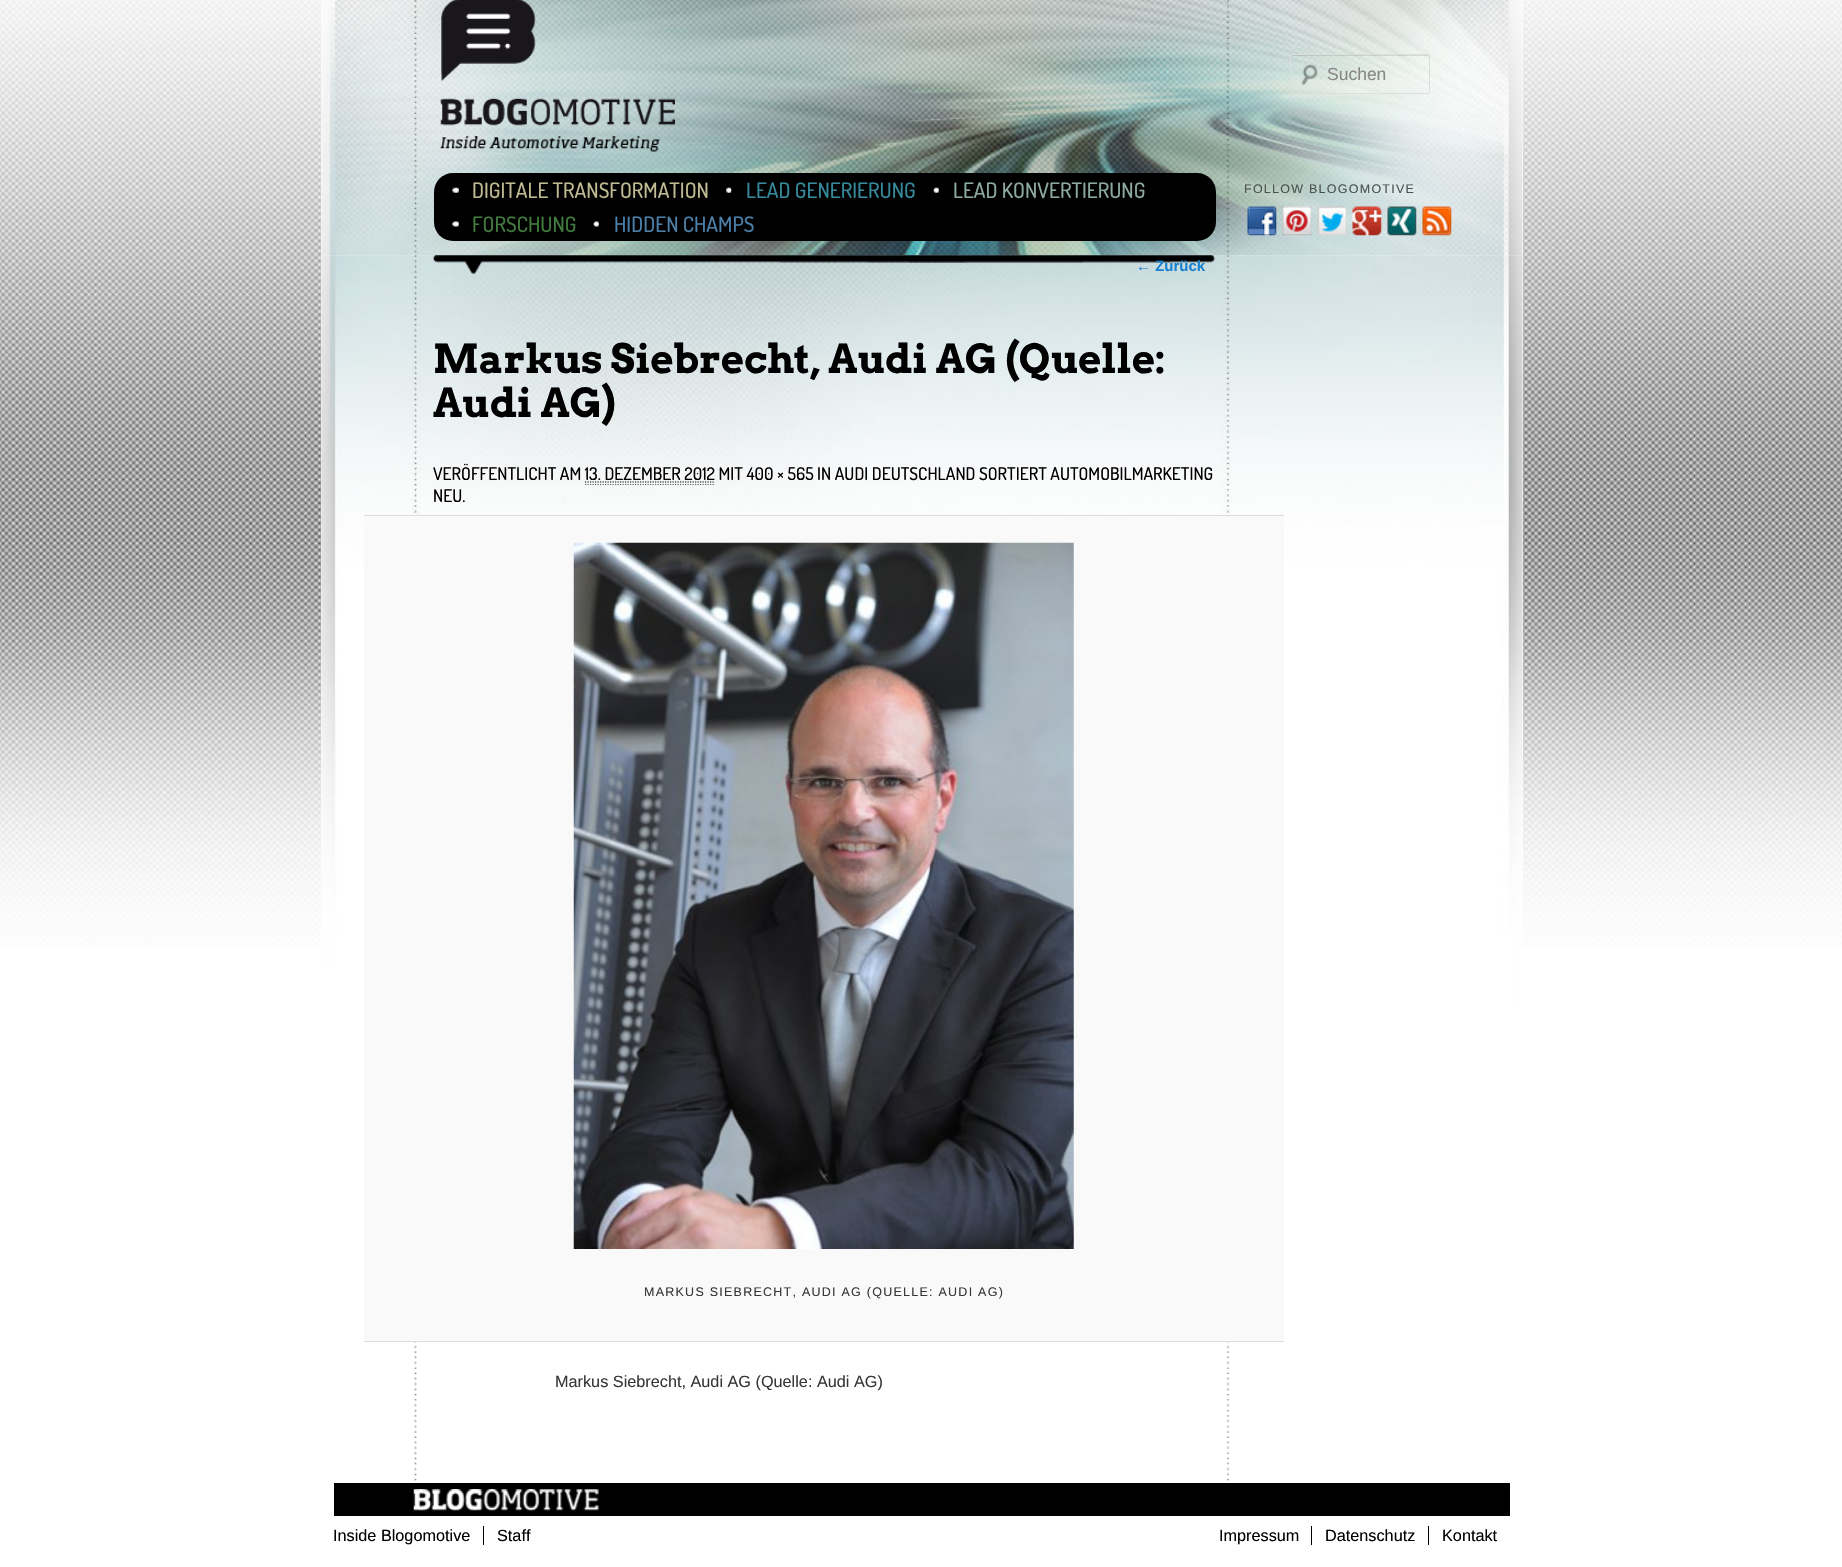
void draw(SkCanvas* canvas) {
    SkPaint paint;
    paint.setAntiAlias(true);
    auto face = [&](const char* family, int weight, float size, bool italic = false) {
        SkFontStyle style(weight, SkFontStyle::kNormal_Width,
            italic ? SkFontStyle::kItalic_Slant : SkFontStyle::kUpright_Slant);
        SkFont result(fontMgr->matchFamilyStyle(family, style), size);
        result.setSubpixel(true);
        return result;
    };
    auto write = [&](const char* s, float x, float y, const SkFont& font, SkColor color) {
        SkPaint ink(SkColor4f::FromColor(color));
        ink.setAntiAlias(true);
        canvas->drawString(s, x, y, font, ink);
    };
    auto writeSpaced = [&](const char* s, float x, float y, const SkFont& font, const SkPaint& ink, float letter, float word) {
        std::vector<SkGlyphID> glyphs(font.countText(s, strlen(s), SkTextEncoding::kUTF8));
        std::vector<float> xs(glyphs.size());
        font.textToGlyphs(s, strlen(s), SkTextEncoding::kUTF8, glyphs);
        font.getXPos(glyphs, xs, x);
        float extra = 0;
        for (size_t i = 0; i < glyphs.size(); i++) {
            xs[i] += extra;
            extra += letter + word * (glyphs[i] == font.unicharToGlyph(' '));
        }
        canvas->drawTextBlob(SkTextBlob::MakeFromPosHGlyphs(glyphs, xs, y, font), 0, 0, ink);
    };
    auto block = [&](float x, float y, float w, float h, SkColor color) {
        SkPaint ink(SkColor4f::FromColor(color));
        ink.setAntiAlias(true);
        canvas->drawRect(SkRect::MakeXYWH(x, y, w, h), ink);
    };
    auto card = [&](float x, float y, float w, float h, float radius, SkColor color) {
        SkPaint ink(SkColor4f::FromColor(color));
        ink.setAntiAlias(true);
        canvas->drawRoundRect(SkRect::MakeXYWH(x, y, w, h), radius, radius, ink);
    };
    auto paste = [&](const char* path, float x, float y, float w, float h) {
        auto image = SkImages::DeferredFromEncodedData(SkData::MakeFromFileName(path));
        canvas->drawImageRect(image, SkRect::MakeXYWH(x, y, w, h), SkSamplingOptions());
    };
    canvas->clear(SK_ColorWHITE);
    paste("pic1.png", 0, 0, 1842, 948);
    block(321, 0, 1202, 948, SK_ColorWHITE);
    paste("pic2.png", 413, 255, 816, 1228);
    paste("pic17.png", 321, 255, 1202, 769);
    paste("pic3.png", 321, 0, 1202, 256);
    paste("pic4.png", 440, 0, 235, 152);
    paste("pic5.png", 1301, 64, 17, 22);
    paint.setColor(SkColorSetARGB(26, 0, 0, 0));
    canvas->drawPath(SkPathBuilder().moveTo(1292, 56).lineTo(1428, 56).lineTo(1429, 58).cubicTo(1429, 57, 1429, 55, 1428, 55).lineTo(1292, 55).cubicTo(1291, 56, 1291, 57, 1291, 58).close().detach(), paint);
    paint.setStyle(SkPaint::kStroke_Style);
    paint.setStrokeWidth(1);
    paint.setColor(SkColorSetRGB(221, 221, 221));
    canvas->drawRoundRect(SkRect::MakeXYWH(1290.5f, 54.5f, 139, 39), 2, 2, paint);
    auto kFont1 = face("Liberation Sans", 400, 17.5f);
    write("Suchen", 1327, 80, kFont1, SkColorSetRGB(136, 136, 136));
    card(434, 173, 782, 68, 19, SK_ColorBLACK);
    paste("pic6.png", 452, 187, 7, 6);
    auto kFont2 = face("Dosis", 500, 21.25f);
    write("DIGITALE TRANSFORMATION", 472, 198, kFont2, SkColorSetRGB(191, 186, 146));
    paste("pic7.png", 726, 187, 6, 6);
    write("LEAD GENERIERUNG", 746, 198, kFont2, SkColorSetRGB(54, 137, 155));
    paste("pic8.png", 933, 187, 6, 6);
    write("LEAD KONVERTIERUNG", 953, 198, kFont2, SkColorSetRGB(139, 169, 159));
    paste("pic9.png", 452, 221, 7, 6);
    write("FORSCHUNG", 472, 232, kFont2, SkColorSetRGB(65, 123, 61));
    paste("pic10.png", 593, 221, 6, 6);
    write("HIDDEN CHAMPS", 614, 232, kFont2, SkColorSetRGB(76, 128, 168));
    auto kFont3 = face("Liberation Sans", 400, 12.5f);
    paint.setStyle(SkPaint::kFill_Style);
    paint.setColor(SkColorSetRGB(74, 82, 78));
    writeSpaced("FOLLOW BLOGOMOTIVE", 1244, 193, kFont3, paint, 1.25f, 0);
    paste("pic11.png", 1247, 206, 30, 30);
    paste("pic12.png", 1282, 206, 30, 30);
    paste("pic13.png", 1317, 206, 30, 30);
    paste("pic14.png", 1352, 206, 30, 30);
    paste("pic15.png", 1387, 206, 30, 30);
    paste("pic16.png", 1422, 206, 30, 30);
    paste("pic18.png", 433, 255, 782, 19);
    auto kFont4 = face("Liberation Sans", 700, 15);
    write("← Zurück", 1136, 271, kFont4, SkColorSetRGB(25, 130, 209));
    auto kFont5 = face("Arvo", 700, 40);
    write("Markus Siebrecht, Audi AG (Quelle:", 433, 373, kFont5, SK_ColorBLACK);
    write("Audi AG)", 433, 417, kFont5, SK_ColorBLACK);
    auto kFont6 = face("Dosis", 500, 17.5f);
    write("VERÖFFENTLICHT AM 13. DEZEMBER 2012 MIT 400 × 565 IN AUDI DEUTSCHLAND SORTIERT AUTOMOBILMARKETING", 433, 480, kFont6, SK_ColorBLACK);
    paint.setStyle(SkPaint::kStroke_Style);
    paint.setStrokeWidth(1.2f);
    paint.setColor(SK_ColorBLACK);
    paint.setPathEffect(SkDashPathEffect::Make({{1.25f, 1.25f}}, 0));
    canvas->drawPath(SkPathBuilder().moveTo(585, 482).lineTo(715, 482).detach(), paint);
    paint.setPathEffect(nullptr);
    paint.setColor(SkColorSetRGB(102, 102, 102));
    paint.setPathEffect(SkDashPathEffect::Make({{1.25f, 1.25f}}, 0));
    canvas->drawPath(SkPathBuilder().moveTo(585, 484.5f).lineTo(715, 484.5f).detach(), paint);
    paint.setPathEffect(nullptr);
    write("NEU.", 433, 502, kFont6, SK_ColorBLACK);
    block(364, 516, 920, 825, SkColorSetRGB(249, 249, 249));
    block(364, 515, 920, 1, SkColorSetRGB(221, 221, 221));
    block(364, 1341, 920, 1, SkColorSetRGB(221, 221, 221));
    paste("pic19.png", 573, 542, 501, 707);
    paint.setStyle(SkPaint::kFill_Style);
    paint.setColor(SkColorSetRGB(55, 55, 55));
    writeSpaced("MARKUS SIEBRECHT, AUDI AG (QUELLE: AUDI AG)", 644, 1296, kFont3, paint, 1.25f, 0);
    auto kFont7 = face("Liberation Sans", 400, 16.25f);
    write("Markus Siebrecht, Audi AG (Quelle: Audi AG)", 555, 1387, kFont7, SkColorSetRGB(55, 55, 55));
    block(334, 1483, 1176, 33, SK_ColorBLACK);
    paste("pic20.png", 413, 1489, 186, 22);
    write("Inside Blogomotive", 333, 1541, kFont7, SK_ColorBLACK);
    write("Staff", 497, 1541, kFont7, SK_ColorBLACK);
    block(483, 1526, 1, 19, SK_ColorBLACK);
    write("Impressum", 1219, 1541, kFont7, SK_ColorBLACK);
    write("Datenschutz", 1325, 1541, kFont7, SK_ColorBLACK);
    block(1311, 1526, 1, 19, SK_ColorBLACK);
    write("Kontakt", 1442, 1541, kFont7, SK_ColorBLACK);
    block(1428, 1526, 1, 19, SK_ColorBLACK);
}
